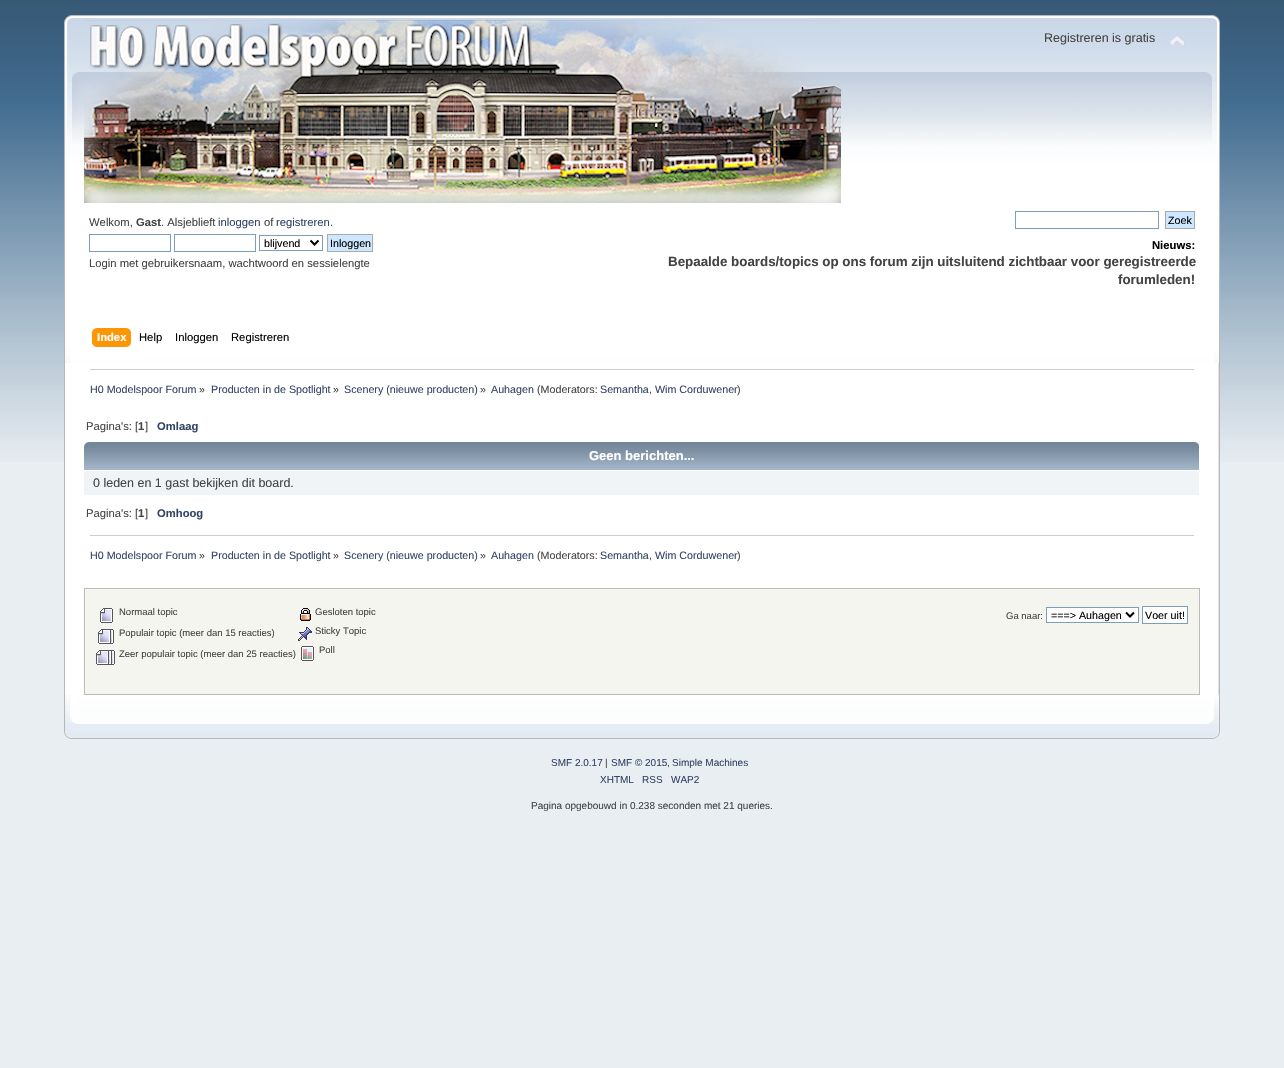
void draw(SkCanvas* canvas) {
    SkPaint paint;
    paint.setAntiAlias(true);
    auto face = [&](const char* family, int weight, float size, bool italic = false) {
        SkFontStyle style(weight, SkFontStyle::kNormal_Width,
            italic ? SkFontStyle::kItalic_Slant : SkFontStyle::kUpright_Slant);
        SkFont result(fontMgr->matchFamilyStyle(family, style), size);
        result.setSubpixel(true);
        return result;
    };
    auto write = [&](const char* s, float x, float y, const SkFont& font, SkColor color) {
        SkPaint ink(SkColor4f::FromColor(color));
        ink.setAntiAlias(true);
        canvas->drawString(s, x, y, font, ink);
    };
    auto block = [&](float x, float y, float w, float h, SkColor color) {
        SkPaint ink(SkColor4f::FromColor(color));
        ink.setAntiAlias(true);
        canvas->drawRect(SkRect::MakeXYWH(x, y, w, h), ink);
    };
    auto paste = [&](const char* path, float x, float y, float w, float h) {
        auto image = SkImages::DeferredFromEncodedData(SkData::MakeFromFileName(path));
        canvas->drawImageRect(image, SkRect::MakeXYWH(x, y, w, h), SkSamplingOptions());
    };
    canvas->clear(SkColorSetRGB(233, 238, 242));
    paste("pic1.png", 0, 0, 1284, 462);
    paste("pic2.png", 64, 15, 1142, 348);
    paste("pic3.png", 1206, 15, 14, 348);
    paste("pic4.png", 84, 20, 757, 183);
    auto kFont1 = face("Liberation Sans", 400, 12.5f);
    write("Registreren is gratis", 1044, 42, kFont1, SkColorSetRGB(68, 68, 68));
    paste("pic5.png", 1170, 35, 15, 12);
    auto kFont2 = face("Liberation Sans", 400, 11.25f);
    write("Welkom,", 89, 226, kFont2, SkColorSetRGB(68, 68, 68));
    auto kFont3 = face("Liberation Sans", 700, 11.25f);
    write("Gast", 136, 226, kFont3, SkColorSetRGB(68, 68, 68));
    write(". Alsjeblieft", 161, 226, kFont2, SkColorSetRGB(68, 68, 68));
    write("inloggen", 218, 226, kFont2, SkColorSetRGB(51, 68, 102));
    write("of", 264, 226, kFont2, SkColorSetRGB(68, 68, 68));
    write("registreren", 276, 226, kFont2, SkColorSetRGB(51, 68, 102));
    write(".", 330, 226, kFont2, SkColorSetRGB(68, 68, 68));
    paint.setStyle(SkPaint::kStroke_Style);
    paint.setStrokeWidth(1);
    paint.setColor(SkColorSetRGB(127, 157, 185));
    canvas->drawRect(SkRect::MakeXYWH(89.5f, 234.5f, 81, 17), paint);
    canvas->drawRect(SkRect::MakeXYWH(174.5f, 234.5f, 81, 17), paint);
    canvas->drawRect(SkRect::MakeXYWH(259.5f, 235.5f, 63, 15), paint);
    paint.setStrokeWidth(2);
    paint.setColor(SK_ColorBLACK);
    canvas->drawPath(SkPathBuilder().moveTo(310.5f, 240.5f).lineTo(314.5f, 244.5f).lineTo(318.5f, 240.5f).detach(), paint);
    auto kFont4 = face("Liberation Sans", 400, 10.7f);
    write("blijvend", 264, 247, kFont4, SK_ColorBLACK);
    paint.setStyle(SkPaint::kFill_Style);
    paint.setColor(SkColorSetRGB(205, 231, 255));
    canvas->drawRect(SkRect::MakeXYWH(327.5f, 234.5f, 45, 17), paint);
    paint.setStyle(SkPaint::kStroke_Style);
    paint.setStrokeWidth(1);
    paint.setColor(SkColorSetRGB(170, 170, 170));
    canvas->drawRect(SkRect::MakeXYWH(327.5f, 234.5f, 45, 17), paint);
    write("Inloggen", 330, 247, kFont4, SK_ColorBLACK);
    write("Login met gebruikersnaam, wachtwoord en sessielengte", 89, 267, kFont2, SkColorSetRGB(68, 68, 68));
    paint.setColor(SkColorSetRGB(127, 157, 185));
    canvas->drawRect(SkRect::MakeXYWH(1015.5f, 211.5f, 143, 17), paint);
    paint.setStyle(SkPaint::kFill_Style);
    paint.setColor(SkColorSetRGB(205, 231, 255));
    canvas->drawRect(SkRect::MakeXYWH(1165.5f, 211.5f, 29, 17), paint);
    paint.setStyle(SkPaint::kStroke_Style);
    paint.setColor(SkColorSetRGB(170, 170, 170));
    canvas->drawRect(SkRect::MakeXYWH(1165.5f, 211.5f, 29, 17), paint);
    write("Zoek", 1168, 224, kFont4, SK_ColorBLACK);
    write("Nieuws:", 1152, 249, kFont3, SK_ColorBLACK);
    auto kFont5 = face("Liberation Sans", 700, 13.35f);
    write("Bepaalde boards/topics op ons forum zijn uitsluitend zichtbaar voor geregistreerde", 668, 266, kFont5, SkColorSetRGB(68, 68, 68));
    write("forumleden!", 1118, 284, kFont5, SkColorSetRGB(68, 68, 68));
    paste("pic6.png", 97, 328, 34, 19);
    paste("pic7.png", 92, 328, 5, 19);
    write("Index", 97, 341, kFont3, SK_ColorWHITE);
    write("Help", 139, 341, kFont2, SK_ColorBLACK);
    write("Inloggen", 175, 341, kFont2, SK_ColorBLACK);
    write("Registreren", 231, 341, kFont2, SK_ColorBLACK);
    block(65, 363, 1153, 332, SK_ColorWHITE);
    block(64, 363, 1, 332, SkColorSetRGB(183, 183, 183));
    paste("pic8.png", 1218, 363, 2, 332);
    block(90, 369, 1104, 1, SkColorSetRGB(204, 204, 204));
    write("H0 Modelspoor Forum", 90, 393, kFont4, SkColorSetRGB(51, 68, 102));
    write("»", 199, 393, kFont4, SkColorSetRGB(68, 68, 68));
    write("Producten in de Spotlight", 211, 393, kFont4, SkColorSetRGB(51, 68, 102));
    write("»", 333, 393, kFont4, SkColorSetRGB(68, 68, 68));
    write("Scenery (nieuwe producten)", 344, 393, kFont4, SkColorSetRGB(51, 68, 102));
    write("»", 480, 393, kFont4, SkColorSetRGB(68, 68, 68));
    write("Auhagen", 491, 393, kFont4, SkColorSetRGB(51, 68, 102));
    write("(Moderators:", 537, 393, kFont4, SkColorSetRGB(68, 68, 68));
    write("Semantha", 600, 393, kFont4, SkColorSetRGB(51, 68, 102));
    write(",", 649, 393, kFont4, SkColorSetRGB(68, 68, 68));
    write("Wim Corduwener", 655, 393, kFont4, SkColorSetRGB(51, 68, 102));
    write(")", 737, 393, kFont4, SkColorSetRGB(68, 68, 68));
    write("Pagina's: [", 86, 430, kFont2, SkColorSetRGB(68, 68, 68));
    write("1", 138, 430, kFont3, SkColorSetRGB(68, 68, 68));
    write("]", 145, 430, kFont2, SkColorSetRGB(68, 68, 68));
    write("Omlaag", 157, 430, kFont3, SkColorSetRGB(51, 68, 102));
    paste("pic9.png", 84, 442, 89, 28);
    paste("pic10.png", 173, 442, 937, 28);
    auto kFont6 = face("Liberation Sans", 700, 13);
    write("Geen berichten...", 589, 460, kFont6, SK_ColorWHITE);
    paste("pic11.png", 1110, 442, 89, 28);
    block(84, 471, 1115, 24, SkColorSetRGB(240, 244, 247));
    write("0 leden en 1 gast bekijken dit board.", 93, 487, kFont1, SkColorSetRGB(68, 68, 68));
    write("Pagina's: [", 86, 517, kFont2, SkColorSetRGB(68, 68, 68));
    write("1", 138, 517, kFont3, SkColorSetRGB(68, 68, 68));
    write("]", 145, 517, kFont2, SkColorSetRGB(68, 68, 68));
    write("Omhoog", 157, 517, kFont3, SkColorSetRGB(51, 68, 102));
    block(90, 535, 1104, 1, SkColorSetRGB(204, 204, 204));
    write("H0 Modelspoor Forum", 90, 559, kFont4, SkColorSetRGB(51, 68, 102));
    write("»", 199, 559, kFont4, SkColorSetRGB(68, 68, 68));
    write("Producten in de Spotlight", 211, 559, kFont4, SkColorSetRGB(51, 68, 102));
    write("»", 333, 559, kFont4, SkColorSetRGB(68, 68, 68));
    write("Scenery (nieuwe producten)", 344, 559, kFont4, SkColorSetRGB(51, 68, 102));
    write("»", 480, 559, kFont4, SkColorSetRGB(68, 68, 68));
    write("Auhagen", 491, 559, kFont4, SkColorSetRGB(51, 68, 102));
    write("(Moderators:", 537, 559, kFont4, SkColorSetRGB(68, 68, 68));
    write("Semantha", 600, 559, kFont4, SkColorSetRGB(51, 68, 102));
    write(",", 649, 559, kFont4, SkColorSetRGB(68, 68, 68));
    write("Wim Corduwener", 655, 559, kFont4, SkColorSetRGB(51, 68, 102));
    write(")", 737, 559, kFont4, SkColorSetRGB(68, 68, 68));
    paint.setStyle(SkPaint::kFill_Style);
    paint.setColor(SkColorSetRGB(245, 245, 240));
    canvas->drawRect(SkRect::MakeXYWH(84.5f, 588.5f, 1115, 106), paint);
    paint.setStyle(SkPaint::kStroke_Style);
    paint.setColor(SkColorSetRGB(187, 187, 187));
    canvas->drawRect(SkRect::MakeXYWH(84.5f, 588.5f, 1115, 106), paint);
    paste("pic12.png", 100, 608, 13, 15);
    auto kFont7 = face("Liberation Sans", 400, 9.5f);
    write("Normaal topic", 119, 615, kFont7, SkColorSetRGB(68, 68, 68));
    paste("pic13.png", 98, 629, 16, 15);
    write("Populair topic (meer dan 15 reacties)", 119, 636, kFont7, SkColorSetRGB(68, 68, 68));
    paste("pic14.png", 96, 650, 19, 15);
    write("Zeer populair topic (meer dan 25 reacties)", 119, 657, kFont7, SkColorSetRGB(68, 68, 68));
    paste("pic15.png", 300, 608, 11, 13);
    write("Gesloten topic", 315, 615, kFont7, SkColorSetRGB(68, 68, 68));
    paste("pic16.png", 298, 627, 14, 14);
    write("Sticky Topic", 315, 634, kFont7, SkColorSetRGB(68, 68, 68));
    paste("pic17.png", 301, 646, 13, 15);
    write("Poll", 319, 653, kFont7, SkColorSetRGB(68, 68, 68));
    write("Ga naar:", 1006, 619, kFont7, SkColorSetRGB(68, 68, 68));
    paint.setStyle(SkPaint::kFill_Style);
    paint.setColor(SK_ColorWHITE);
    canvas->drawRect(SkRect::MakeXYWH(1046.5f, 607.5f, 92, 15), paint);
    paint.setStyle(SkPaint::kStroke_Style);
    paint.setColor(SkColorSetRGB(127, 157, 185));
    canvas->drawRect(SkRect::MakeXYWH(1046.5f, 607.5f, 92, 15), paint);
    paint.setStrokeWidth(2);
    paint.setColor(SK_ColorBLACK);
    canvas->drawPath(SkPathBuilder().moveTo(1126, 612.5f).lineTo(1130, 616.5f).lineTo(1134, 612.5f).detach(), paint);
    write("===> Auhagen", 1051, 619, kFont4, SK_ColorBLACK);
    paint.setStyle(SkPaint::kFill_Style);
    paint.setColor(SK_ColorWHITE);
    canvas->drawRect(SkRect::MakeXYWH(1142.5f, 606.5f, 45, 17), paint);
    paint.setStyle(SkPaint::kStroke_Style);
    paint.setStrokeWidth(1);
    paint.setColor(SkColorSetRGB(127, 157, 185));
    canvas->drawRect(SkRect::MakeXYWH(1142.5f, 606.5f, 45, 17), paint);
    write("Voer uit!", 1145, 619, kFont4, SK_ColorBLACK);
    paste("pic18.png", 64, 695, 1144, 44);
    paste("pic19.png", 1208, 695, 12, 44);
    auto kFont8 = face("Liberation Sans", 400, 10);
    write("SMF 2.0.17", 551, 766, kFont8, SkColorSetRGB(51, 68, 102));
    write("|", 605, 766, kFont8, SkColorSetRGB(68, 68, 68));
    write("SMF © 2015", 611, 766, kFont8, SkColorSetRGB(51, 68, 102));
    write(",", 667, 766, kFont8, SkColorSetRGB(68, 68, 68));
    write("Simple Machines", 672, 766, kFont8, SkColorSetRGB(51, 68, 102));
    write("XHTML", 600, 783, kFont8, SkColorSetRGB(51, 68, 102));
    write("RSS", 642, 783, kFont8, SkColorSetRGB(51, 68, 102));
    write("WAP2", 671, 783, kFont8, SkColorSetRGB(51, 68, 102));
    write("Pagina opgebouwd in 0.238 seconden met 21 queries.", 531, 809, kFont8, SkColorSetRGB(68, 68, 68));
}
